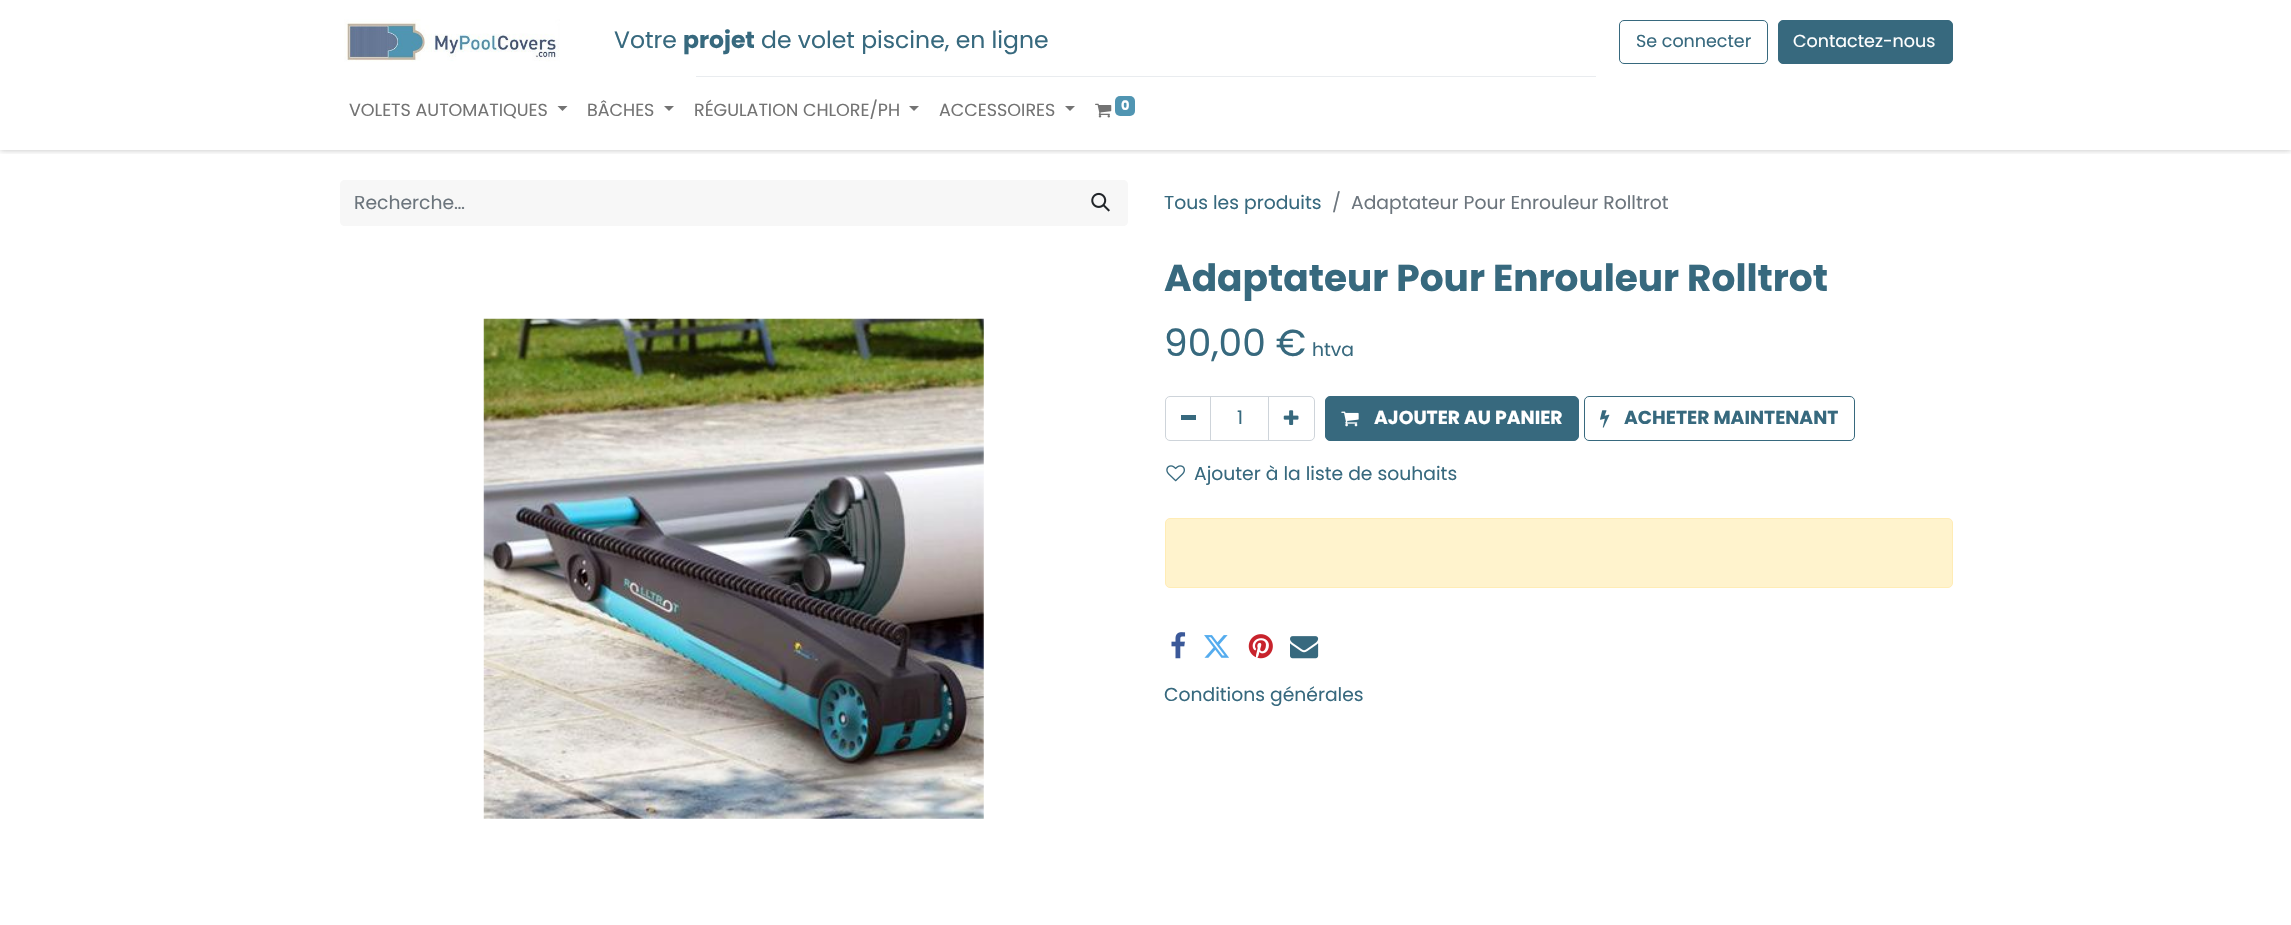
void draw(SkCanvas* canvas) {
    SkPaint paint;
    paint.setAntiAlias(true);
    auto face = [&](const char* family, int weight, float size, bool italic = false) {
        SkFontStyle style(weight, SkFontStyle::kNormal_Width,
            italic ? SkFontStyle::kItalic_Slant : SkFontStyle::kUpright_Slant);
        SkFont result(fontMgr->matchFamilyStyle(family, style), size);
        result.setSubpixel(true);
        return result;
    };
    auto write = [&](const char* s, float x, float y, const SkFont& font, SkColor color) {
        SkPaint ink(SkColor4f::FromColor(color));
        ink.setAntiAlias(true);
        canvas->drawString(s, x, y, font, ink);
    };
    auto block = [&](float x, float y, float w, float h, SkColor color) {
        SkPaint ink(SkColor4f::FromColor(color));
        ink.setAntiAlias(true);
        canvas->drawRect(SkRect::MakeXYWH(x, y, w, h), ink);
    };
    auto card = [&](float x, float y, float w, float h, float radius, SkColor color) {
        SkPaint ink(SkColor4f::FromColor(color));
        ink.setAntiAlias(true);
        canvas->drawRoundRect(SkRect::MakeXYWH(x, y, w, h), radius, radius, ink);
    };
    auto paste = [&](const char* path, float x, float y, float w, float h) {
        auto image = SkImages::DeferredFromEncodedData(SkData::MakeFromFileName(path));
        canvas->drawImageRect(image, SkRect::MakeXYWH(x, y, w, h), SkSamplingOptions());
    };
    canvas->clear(SK_ColorWHITE);
    canvas->save();
    canvas->clipRect(SkRect::MakeXYWH(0, 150, 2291, 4));
    paint.setColor(SkColorSetARGB(64, 0, 0, 0));
    paint.setMaskFilter(SkMaskFilter::MakeBlur(kNormal_SkBlurStyle, 3));
    canvas->drawRect(SkRect::MakeXYWH(0, 0, 2291, 150), paint);
    paint.setMaskFilter(nullptr);
    canvas->restore();
    paste("pic1.png", 344, 19, 216, 43);
    auto kFont1 = face("Poppins", 400, 23.5f);
    write("Votre", 614, 48, kFont1, SkColorSetRGB(55, 105, 126));
    auto kFont2 = face("Poppins", 700, 23.5f);
    write("projet", 683, 48, kFont2, SkColorSetRGB(55, 105, 126));
    write("de volet piscine, en ligne", 761, 48, kFont1, SkColorSetRGB(55, 105, 126));
    paint.setStyle(SkPaint::kStroke_Style);
    paint.setStrokeWidth(1);
    paint.setColor(SkColorSetRGB(55, 105, 126));
    canvas->drawRoundRect(SkRect::MakeXYWH(1619.5f, 20.5f, 148, 43), 4.5f, 4.5f, paint);
    auto kFont3 = face("Poppins", 400, 17.5f);
    write("Se connecter", 1636, 47, kFont3, SkColorSetRGB(55, 105, 126));
    paint.setStyle(SkPaint::kFill_Style);
    canvas->drawRoundRect(SkRect::MakeXYWH(1778.5f, 20.5f, 174, 43), 4.5f, 4.5f, paint);
    paint.setStyle(SkPaint::kStroke_Style);
    canvas->drawRoundRect(SkRect::MakeXYWH(1778.5f, 20.5f, 174, 43), 4.5f, 4.5f, paint);
    write("Contactez-nous", 1793, 47, kFont3, SK_ColorWHITE);
    block(696, 76, 900, 1, SkColorSetRGB(233, 236, 239));
    write("VOLETS AUTOMATIQUES", 349, 116, kFont3, SkColorSetRGB(115, 115, 115));
    paint.setStyle(SkPaint::kFill_Style);
    paint.setColor(SkColorSetRGB(115, 115, 115));
    canvas->drawPath(SkPathBuilder().moveTo(557.5f, 106).lineTo(567.5f, 106).lineTo(562.5f, 111).close().detach(), paint);
    write("BÂCHES", 587, 116, kFont3, SkColorSetRGB(115, 115, 115));
    canvas->drawPath(SkPathBuilder().moveTo(664, 106).lineTo(674, 106).lineTo(669, 111).close().detach(), paint);
    write("RÉGULATION CHLORE/PH", 694, 116, kFont3, SkColorSetRGB(115, 115, 115));
    canvas->drawPath(SkPathBuilder().moveTo(909, 106).lineTo(919, 106).lineTo(914, 111).close().detach(), paint);
    write("ACCESSOIRES", 939, 116, kFont3, SkColorSetRGB(115, 115, 115));
    canvas->drawPath(SkPathBuilder().moveTo(1065, 106).lineTo(1075, 106).lineTo(1070, 111).close().detach(), paint);
    paste("pic2.png", 1095, 103, 17, 15);
    card(1115, 96, 20, 20, 5, SkColorSetRGB(80, 149, 178));
    auto kFont4 = face("Poppins", 700, 13);
    write("0", 1121, 110, kFont4, SK_ColorWHITE);
    paint.setColor(SkColorSetRGB(247, 247, 247));
    canvas->drawPath(SkPathBuilder().moveTo(345, 180).lineTo(1076, 180).lineTo(1076, 226).lineTo(345, 226).cubicTo(342, 226, 340, 224, 340, 221).lineTo(340, 185).cubicTo(340, 182, 342, 180, 345, 180).close().detach(), paint);
    auto kFont5 = face("Poppins", 400, 18.75f);
    write("Recherche…", 354, 209, kFont5, SkColorSetRGB(108, 117, 125));
    canvas->drawPath(SkPathBuilder().moveTo(1075, 180).lineTo(1123, 180).cubicTo(1126, 180, 1128, 182, 1128, 185).lineTo(1128, 221).cubicTo(1128, 224, 1126, 226, 1123, 226).lineTo(1075, 226).close().detach(), paint);
    paste("pic3.png", 1091, 192, 19, 20);
    write("Tous les produits", 1164, 209, kFont5, SkColorSetRGB(55, 105, 126));
    write("/", 1332, 209, kFont5, SkColorSetRGB(108, 117, 125));
    write("Adaptateur Pour Enrouleur Rolltrot", 1351, 209, kFont5, SkColorSetRGB(108, 117, 125));
    paste("pic4.png", 483, 318, 501, 501);
    auto kFont6 = face("Poppins", 700, 37.5f);
    write("Adaptateur Pour Enrouleur Rolltrot", 1164, 291, kFont6, SkColorSetRGB(55, 105, 126));
    auto kFont7 = face("Poppins", 400, 37.5f);
    write("90,00 €", 1164, 356, kFont7, SkColorSetRGB(55, 105, 126));
    write("htva", 1312, 356, kFont5, SkColorSetRGB(55, 105, 126));
    paint.setStyle(SkPaint::kStroke_Style);
    paint.setColor(SkColorSetRGB(206, 212, 218));
    canvas->drawRect(SkRect::MakeXYWH(1210.5f, 396.5f, 58, 44), paint);
    canvas->drawPath(SkPathBuilder().moveTo(1170, 396.5f).lineTo(1210.5f, 396.5f).lineTo(1210.5f, 440.5f).lineTo(1170, 440.5f).cubicTo(1167.5f, 440.5f, 1165.5f, 438.5f, 1165.5f, 436).lineTo(1165.5f, 401).cubicTo(1165.5f, 398.5f, 1167.5f, 396.5f, 1170, 396.5f).close().detach(), paint);
    block(1181, 415, 15, 5, SkColorSetRGB(55, 105, 126));
    write("1", 1237, 424, kFont5, SkColorSetRGB(55, 105, 126));
    canvas->drawPath(SkPathBuilder().moveTo(1268.5f, 396.5f).lineTo(1310, 396.5f).cubicTo(1312.5f, 396.5f, 1314.5f, 398.5f, 1314.5f, 401).lineTo(1314.5f, 436).cubicTo(1314.5f, 438.5f, 1312.5f, 440.5f, 1310, 440.5f).lineTo(1268.5f, 440.5f).close().detach(), paint);
    paste("pic5.png", 1283, 410, 16, 15);
    paint.setStyle(SkPaint::kFill_Style);
    paint.setColor(SkColorSetRGB(55, 105, 126));
    canvas->drawRoundRect(SkRect::MakeXYWH(1325.5f, 396.5f, 253, 44), 4.5f, 4.5f, paint);
    paint.setStyle(SkPaint::kStroke_Style);
    canvas->drawRoundRect(SkRect::MakeXYWH(1325.5f, 396.5f, 253, 44), 4.5f, 4.5f, paint);
    paste("pic6.png", 1341, 411, 18, 16);
    auto kFont8 = face("Poppins", 700, 18.75f);
    write("AJOUTER AU PANIER", 1374, 424, kFont8, SK_ColorWHITE);
    canvas->drawRoundRect(SkRect::MakeXYWH(1584.5f, 396.5f, 270, 44), 4.5f, 4.5f, paint);
    paste("pic7.png", 1600, 410, 10, 18);
    write("ACHETER MAINTENANT", 1624, 424, kFont8, SkColorSetRGB(55, 105, 126));
    paste("pic8.png", 1166, 465, 19, 17);
    write("Ajouter à la liste de souhaits", 1194, 480, kFont5, SkColorSetRGB(55, 105, 126));
    paint.setStyle(SkPaint::kFill_Style);
    paint.setColor(SkColorSetRGB(255, 243, 205));
    canvas->drawRoundRect(SkRect::MakeXYWH(1165.5f, 518.5f, 787, 69), 4.5f, 4.5f, paint);
    paint.setStyle(SkPaint::kStroke_Style);
    paint.setColor(SkColorSetRGB(255, 236, 181));
    canvas->drawRoundRect(SkRect::MakeXYWH(1165.5f, 518.5f, 787, 69), 4.5f, 4.5f, paint);
    paste("pic9.png", 1171, 632, 15, 27);
    paste("pic10.png", 1204, 635, 25, 23);
    paste("pic11.png", 1248, 634, 25, 25);
    paste("pic12.png", 1290, 636, 29, 23);
    write("Conditions générales", 1164, 701, kFont5, SkColorSetRGB(55, 105, 126));
}
